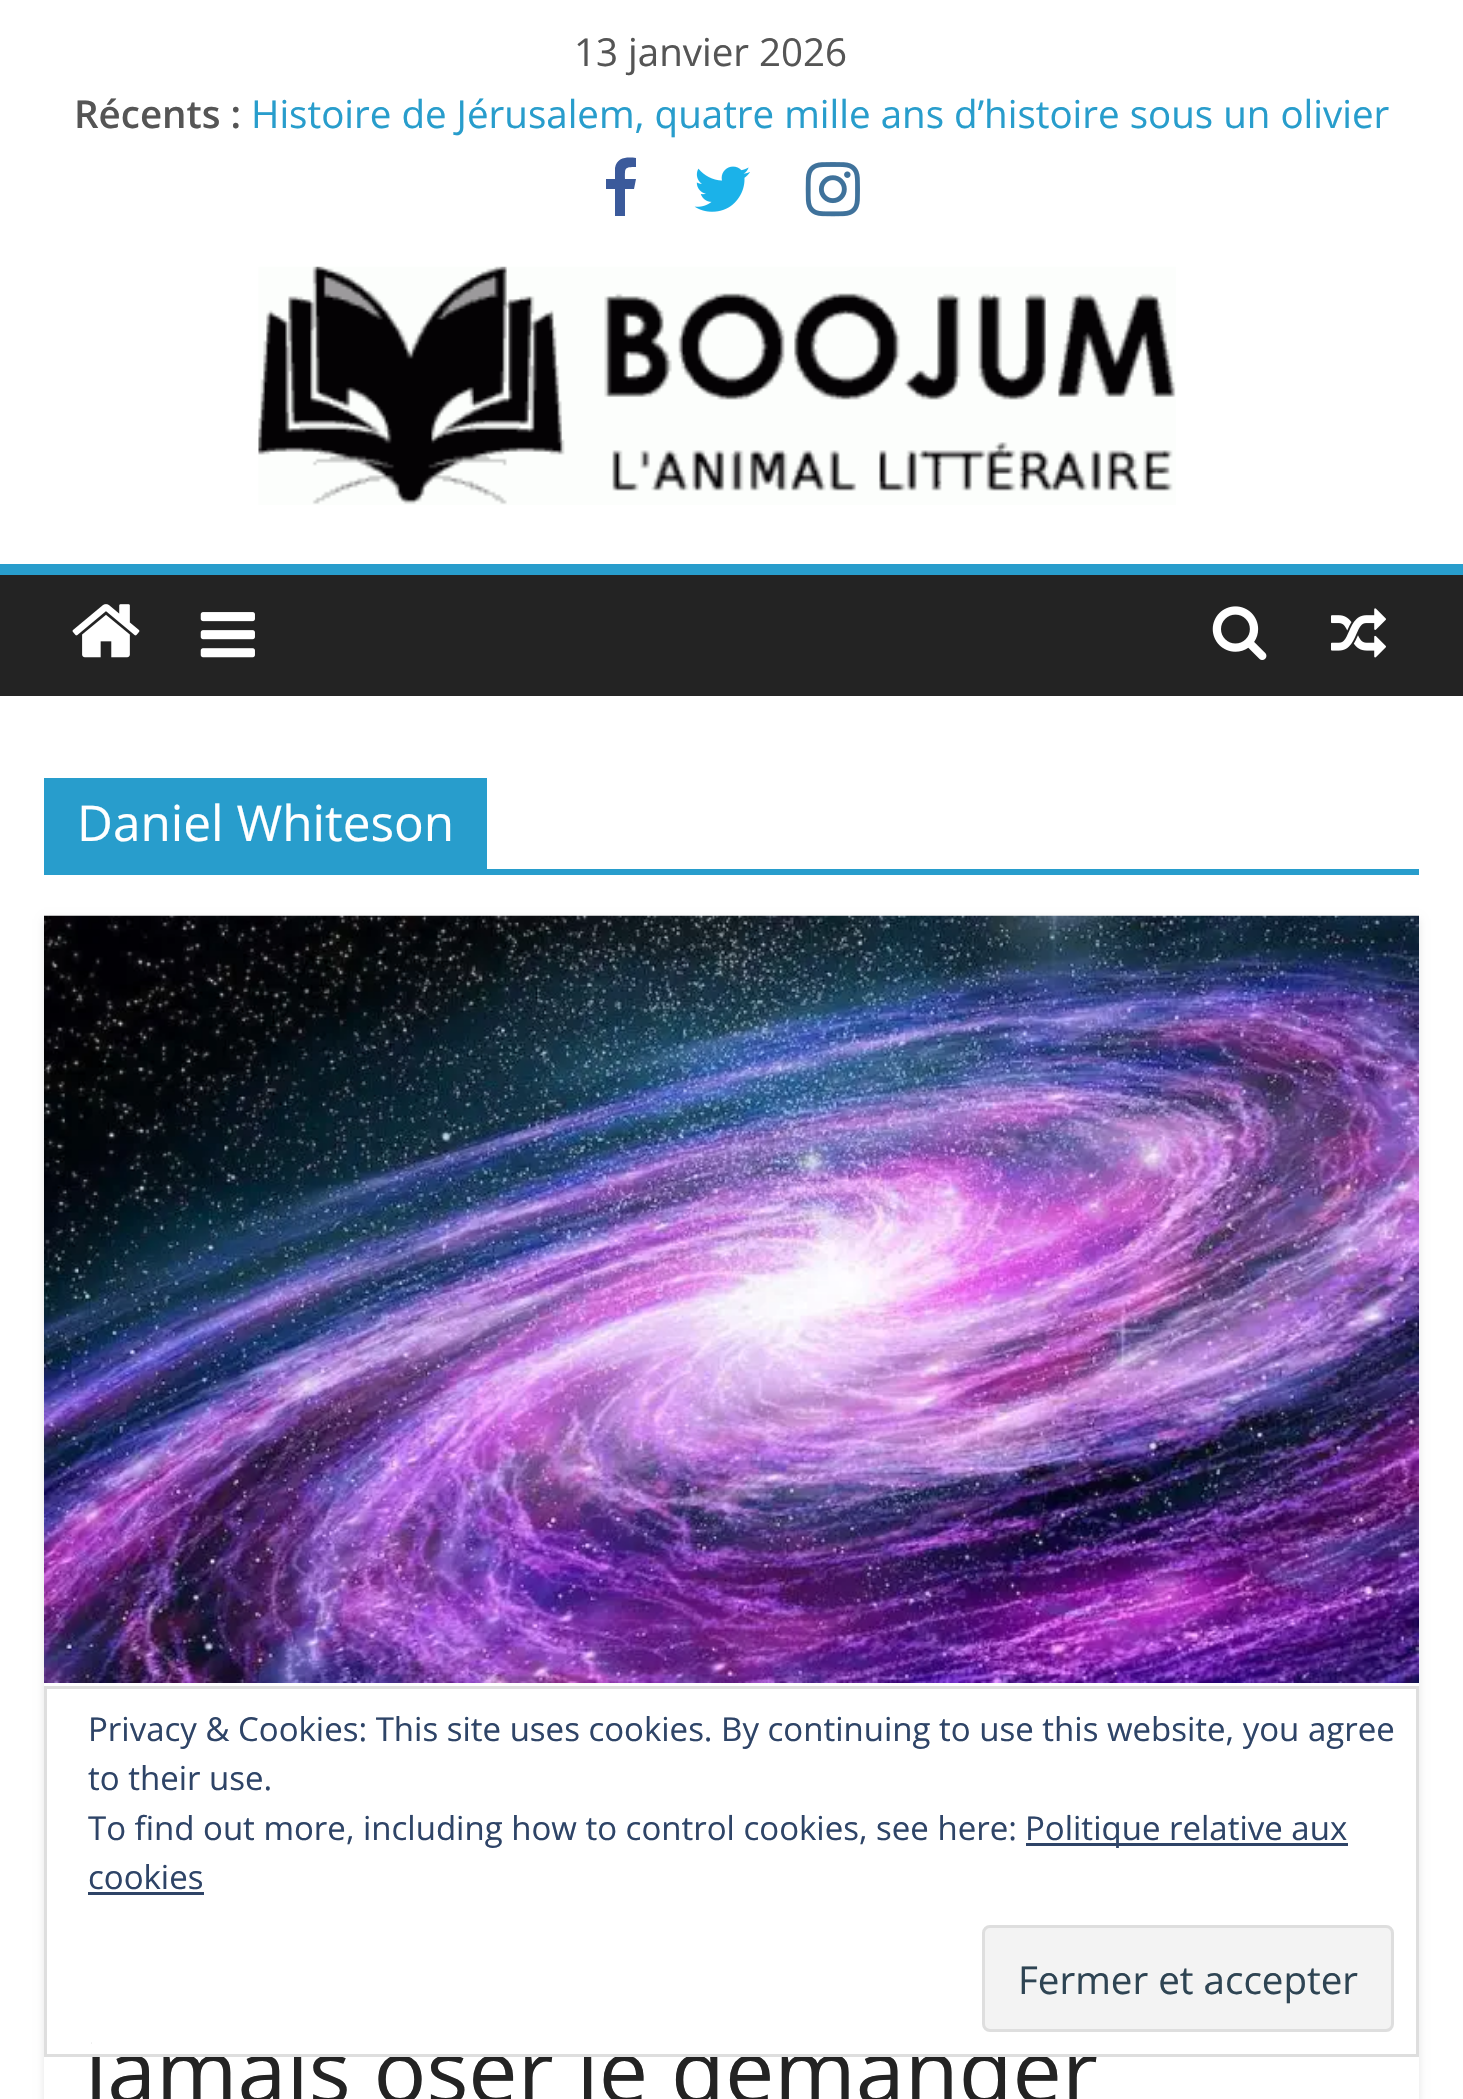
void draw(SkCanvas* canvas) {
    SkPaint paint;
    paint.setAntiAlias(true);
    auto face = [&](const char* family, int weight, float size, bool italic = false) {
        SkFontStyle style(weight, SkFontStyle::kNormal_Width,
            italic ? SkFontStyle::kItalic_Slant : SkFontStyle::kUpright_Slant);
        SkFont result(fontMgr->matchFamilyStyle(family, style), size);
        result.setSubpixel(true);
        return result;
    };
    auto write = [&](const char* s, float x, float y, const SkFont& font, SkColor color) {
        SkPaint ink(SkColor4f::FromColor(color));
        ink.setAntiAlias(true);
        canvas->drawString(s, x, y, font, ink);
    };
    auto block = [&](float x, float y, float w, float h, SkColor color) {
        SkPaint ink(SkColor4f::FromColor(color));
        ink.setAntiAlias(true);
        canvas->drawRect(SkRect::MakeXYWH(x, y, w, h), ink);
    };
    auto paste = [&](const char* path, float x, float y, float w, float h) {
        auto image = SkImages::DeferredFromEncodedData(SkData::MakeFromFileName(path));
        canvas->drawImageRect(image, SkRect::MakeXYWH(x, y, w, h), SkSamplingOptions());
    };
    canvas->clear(SK_ColorWHITE);
    auto kFont1 = face("Open Sans", 400, 38.5f);
    write("13 janvier 2026", 574, 66, kFont1, SkColorSetRGB(85, 85, 85));
    auto kFont2 = face("Open Sans", 600, 38.5f);
    write("Récents :", 74, 128, kFont2, SkColorSetRGB(85, 85, 85));
    write("Histoire de Jérusalem, quatre mille ans d’histoire sous un olivier", 251, 128, kFont1, SkColorSetRGB(40, 157, 204));
    paint.setColor(SkColorSetRGB(59, 90, 155));
    canvas->drawPath(SkPathBuilder().moveTo(636, 158).lineTo(636, 167).cubicTo(624, 167, 625, 168, 625, 179).lineTo(636, 179).lineTo(634, 189).lineTo(625, 189).lineTo(625, 216).lineTo(615, 216).lineTo(615, 189).lineTo(606, 189).lineTo(606, 179).lineTo(615, 179).lineTo(615, 168).cubicTo(617, 157, 627, 157, 636, 158).close().detach(), paint);
    paste("pic1.png", 694, 166, 56, 46);
    paste("pic2.png", 805, 162, 55, 55);
    paste("pic3.png", 258, 266, 918, 239);
    block(0, 575, 1463, 121, SkColorSetRGB(35, 35, 35));
    block(0, 564, 1463, 11, SkColorSetRGB(40, 157, 204));
    paste("pic4.png", 72, 604, 68, 54);
    paste("pic5.png", 200, 612, 55, 46);
    paste("pic6.png", 1212, 606, 55, 54);
    paste("pic7.png", 1331, 608, 55, 50);
    block(44, 869, 1375, 6, SkColorSetRGB(40, 157, 204));
    block(44, 778, 443, 91, SkColorSetRGB(40, 157, 204));
    auto kFont3 = face("Open Sans", 400, 49.5f);
    write("Daniel Whiteson", 77, 841, kFont3, SK_ColorWHITE);
    canvas->save();
    canvas->clipPath(SkPathBuilder(SkPathFillType::kEvenOdd).moveTo(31, 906).lineTo(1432, 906).lineTo(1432, 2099).lineTo(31, 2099).close().moveTo(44, 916).lineTo(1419, 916).lineTo(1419, 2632).lineTo(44, 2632).close().detach(), true);
    paint.setColor(SkColorSetARGB(26, 0, 0, 0));
    paint.setMaskFilter(SkMaskFilter::MakeBlur(kNormal_SkBlurStyle, 4));
    canvas->drawRect(SkRect::MakeXYWH(44, 919, 1375, 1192), paint);
    paint.setMaskFilter(nullptr);
    canvas->restore();
    paste("pic8.png", 44, 915, 1375, 768);
    auto kFont4 = face("Open Sans", 400, 88);
    write("jamais oser le demander", 85, 2103, kFont4, SkColorSetRGB(35, 35, 35));
    block(92, 2036, 914, 18, SK_ColorWHITE);
    paint.setStyle(SkPaint::kStroke_Style);
    paint.setStrokeWidth(3);
    paint.setColor(SkColorSetRGB(222, 222, 222));
    canvas->drawRect(SkRect::MakeXYWH(45.5f, 1687.5f, 1372, 368), paint);
    auto kFont5 = face("Open Sans", 400, 33);
    write("Privacy & Cookies: This site uses cookies. By continuing to use this website, you agree", 88, 1741, kFont5, SkColorSetRGB(46, 68, 103));
    write("to their use.", 88, 1790, kFont5, SkColorSetRGB(46, 68, 103));
    write("To find out more, including how to control cookies, see here:", 88, 1840, kFont5, SkColorSetRGB(46, 68, 103));
    block(1026, 1843, 322, 3, SkColorSetRGB(46, 68, 103));
    write("Politique relative aux", 1025, 1840, kFont5, SkColorSetRGB(46, 68, 103));
    write("cookies", 88, 1889, kFont5, SkColorSetRGB(46, 68, 103));
    block(88, 1892, 116, 3, SkColorSetRGB(46, 68, 103));
    paint.setStyle(SkPaint::kFill_Style);
    paint.setColor(SkColorSetRGB(243, 243, 243));
    canvas->drawRoundRect(SkRect::MakeXYWH(983.5f, 1926.5f, 409, 104), 6.5f, 6.5f, paint);
    paint.setStyle(SkPaint::kStroke_Style);
    paint.setColor(SkColorSetRGB(222, 222, 222));
    canvas->drawRoundRect(SkRect::MakeXYWH(983.5f, 1926.5f, 409, 104), 6.5f, 6.5f, paint);
    write("Fermer et accepter", 1018, 1994, kFont1, SkColorSetRGB(46, 68, 83));
}
